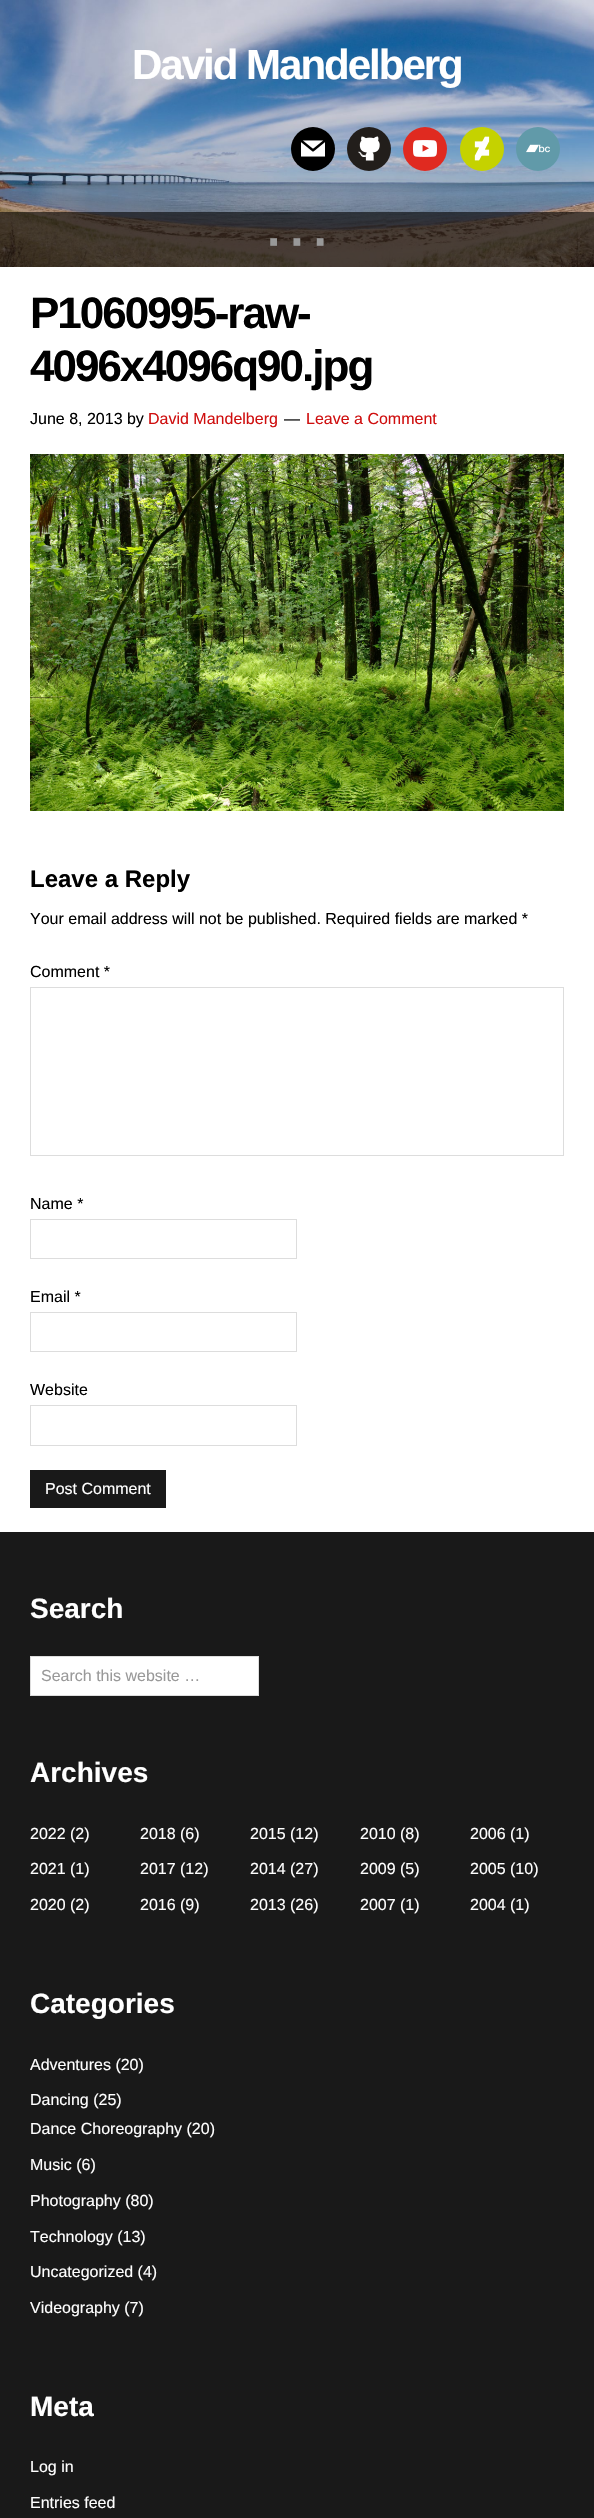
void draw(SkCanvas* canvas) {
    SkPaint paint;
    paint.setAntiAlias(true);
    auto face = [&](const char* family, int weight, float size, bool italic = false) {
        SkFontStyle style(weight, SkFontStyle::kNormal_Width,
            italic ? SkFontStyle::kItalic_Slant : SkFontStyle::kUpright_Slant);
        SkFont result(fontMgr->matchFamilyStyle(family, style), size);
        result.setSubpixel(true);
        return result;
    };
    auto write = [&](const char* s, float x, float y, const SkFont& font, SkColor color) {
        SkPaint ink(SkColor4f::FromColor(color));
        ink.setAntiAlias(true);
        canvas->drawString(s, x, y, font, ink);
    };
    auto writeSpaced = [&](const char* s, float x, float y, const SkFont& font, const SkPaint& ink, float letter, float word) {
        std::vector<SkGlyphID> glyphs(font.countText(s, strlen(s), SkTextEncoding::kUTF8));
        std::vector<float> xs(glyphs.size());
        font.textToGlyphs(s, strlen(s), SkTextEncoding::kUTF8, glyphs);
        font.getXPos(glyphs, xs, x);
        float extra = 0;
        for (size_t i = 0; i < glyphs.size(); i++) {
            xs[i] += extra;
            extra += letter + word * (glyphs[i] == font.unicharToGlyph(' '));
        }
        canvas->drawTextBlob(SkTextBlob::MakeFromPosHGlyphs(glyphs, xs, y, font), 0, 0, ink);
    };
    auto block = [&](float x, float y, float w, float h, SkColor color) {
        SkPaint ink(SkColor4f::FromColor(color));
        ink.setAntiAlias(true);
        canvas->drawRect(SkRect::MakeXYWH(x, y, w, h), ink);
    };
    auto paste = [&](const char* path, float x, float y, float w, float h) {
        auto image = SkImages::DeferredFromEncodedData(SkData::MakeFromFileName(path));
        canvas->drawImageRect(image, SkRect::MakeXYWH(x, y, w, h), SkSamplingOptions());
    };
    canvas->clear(SK_ColorWHITE);
    paste("pic1.png", 0, 0, 594, 267);
    auto kFont1 = face("Liberation Sans", 700, 42);
    paint.setColor(SK_ColorWHITE);
    writeSpaced("David Mandelberg", 132, 79, kFont1, paint, -2, 0);
    paint.setColor(SK_ColorBLACK);
    canvas->drawCircle(313, 149, 22, paint);
    paste("pic2.png", 301, 140, 24, 17);
    paint.setColor(SkColorSetRGB(34, 30, 27));
    canvas->drawCircle(369, 149, 22, paint);
    paste("pic3.png", 358, 136, 22, 25);
    paint.setColor(SkColorSetRGB(224, 42, 32));
    canvas->drawCircle(425, 149, 22, paint);
    paste("pic4.png", 413, 140, 24, 17);
    paint.setColor(SkColorSetRGB(197, 210, 0));
    canvas->drawCircle(482, 149, 22, paint);
    paste("pic5.png", 474, 136, 16, 25);
    paint.setColor(SkColorSetRGB(97, 154, 169));
    canvas->drawCircle(538, 149, 22, paint);
    paste("pic6.png", 526, 144, 24, 9);
    block(0, 212, 594, 55, SkColorSetARGB(153, 0, 0, 0));
    auto kFont2 = face("Liberation Sans", 400, 70);
    write("···", 262, 261, kFont2, SkColorSetRGB(153, 153, 153));
    auto kFont3 = face("Liberation Sans", 700, 44);
    paint.setColor(SK_ColorBLACK);
    writeSpaced("P1060995-raw-", 30, 328, kFont3, paint, -2, 0);
    writeSpaced("4096x4096q90.jpg", 30, 381, kFont3, paint, -2, 0);
    auto kFont4 = face("Liberation Sans", 400, 16);
    write("June 8, 2013 by", 30, 424, kFont4, SK_ColorBLACK);
    write("David Mandelberg", 148, 424, kFont4, SkColorSetRGB(207, 15, 15));
    write("—", 284, 424, kFont4, SK_ColorBLACK);
    write("Leave a Comment", 306, 424, kFont4, SkColorSetRGB(207, 15, 15));
    paste("pic7.png", 30, 454, 534, 357);
    auto kFont5 = face("Liberation Sans", 700, 24);
    write("Leave a Reply", 30, 887, kFont5, SK_ColorBLACK);
    write("Your email address will not be published. Required fields are marked *", 30, 924, kFont4, SK_ColorBLACK);
    write("Comment *", 30, 977, kFont4, SK_ColorBLACK);
    paint.setStyle(SkPaint::kStroke_Style);
    paint.setStrokeWidth(1);
    paint.setColor(SkColorSetRGB(221, 221, 221));
    canvas->drawRect(SkRect::MakeXYWH(30.5f, 987.5f, 533, 168), paint);
    write("Name *", 30, 1209, kFont4, SK_ColorBLACK);
    canvas->drawRect(SkRect::MakeXYWH(30.5f, 1219.5f, 266, 39), paint);
    write("Email *", 30, 1302, kFont4, SK_ColorBLACK);
    canvas->drawRect(SkRect::MakeXYWH(30.5f, 1312.5f, 266, 39), paint);
    write("Website", 30, 1395, kFont4, SK_ColorBLACK);
    canvas->drawRect(SkRect::MakeXYWH(30.5f, 1405.5f, 266, 40), paint);
    block(30, 1470, 136, 38, SkColorSetRGB(25, 25, 25));
    write("Post Comment", 45, 1494, kFont4, SK_ColorWHITE);
    block(0, 1532, 594, 986, SkColorSetRGB(25, 25, 25));
    auto kFont6 = face("Liberation Sans", 700, 28);
    write("Search", 30, 1618, kFont6, SK_ColorWHITE);
    paint.setStyle(SkPaint::kFill_Style);
    paint.setColor(SK_ColorWHITE);
    canvas->drawRect(SkRect::MakeXYWH(30.5f, 1656.5f, 228, 39), paint);
    paint.setStyle(SkPaint::kStroke_Style);
    paint.setColor(SkColorSetRGB(221, 221, 221));
    canvas->drawRect(SkRect::MakeXYWH(30.5f, 1656.5f, 228, 39), paint);
    write("Search this website …", 41, 1681, kFont4, SkColorSetRGB(153, 153, 153));
    write("Archives", 30, 1782, kFont6, SK_ColorWHITE);
    write("2022 (2)", 30, 1839, kFont4, SK_ColorWHITE);
    write("2018 (6)", 140, 1839, kFont4, SK_ColorWHITE);
    write("2015 (12)", 250, 1839, kFont4, SK_ColorWHITE);
    write("2010 (8)", 360, 1839, kFont4, SK_ColorWHITE);
    write("2006 (1)", 470, 1839, kFont4, SK_ColorWHITE);
    write("2021 (1)", 30, 1874, kFont4, SK_ColorWHITE);
    write("2017 (12)", 140, 1874, kFont4, SK_ColorWHITE);
    write("2014 (27)", 250, 1874, kFont4, SK_ColorWHITE);
    write("2009 (5)", 360, 1874, kFont4, SK_ColorWHITE);
    write("2005 (10)", 470, 1874, kFont4, SK_ColorWHITE);
    write("2020 (2)", 30, 1910, kFont4, SK_ColorWHITE);
    write("2016 (9)", 140, 1910, kFont4, SK_ColorWHITE);
    write("2013 (26)", 250, 1910, kFont4, SK_ColorWHITE);
    write("2007 (1)", 360, 1910, kFont4, SK_ColorWHITE);
    write("2004 (1)", 470, 1910, kFont4, SK_ColorWHITE);
    write("Categories", 30, 2013, kFont6, SK_ColorWHITE);
    write("Adventures (20)", 30, 2070, kFont4, SK_ColorWHITE);
    write("Dancing (25)", 30, 2105, kFont4, SK_ColorWHITE);
    write("Dance Choreography (20)", 30, 2134, kFont4, SK_ColorWHITE);
    write("Music (6)", 30, 2170, kFont4, SK_ColorWHITE);
    write("Photography (80)", 30, 2206, kFont4, SK_ColorWHITE);
    write("Technology (13)", 30, 2242, kFont4, SK_ColorWHITE);
    write("Uncategorized (4)", 30, 2277, kFont4, SK_ColorWHITE);
    write("Videography (7)", 30, 2313, kFont4, SK_ColorWHITE);
    write("Meta", 30, 2416, kFont6, SK_ColorWHITE);
    write("Log in", 30, 2472, kFont4, SK_ColorWHITE);
    write("Entries feed", 30, 2508, kFont4, SK_ColorWHITE);
}
